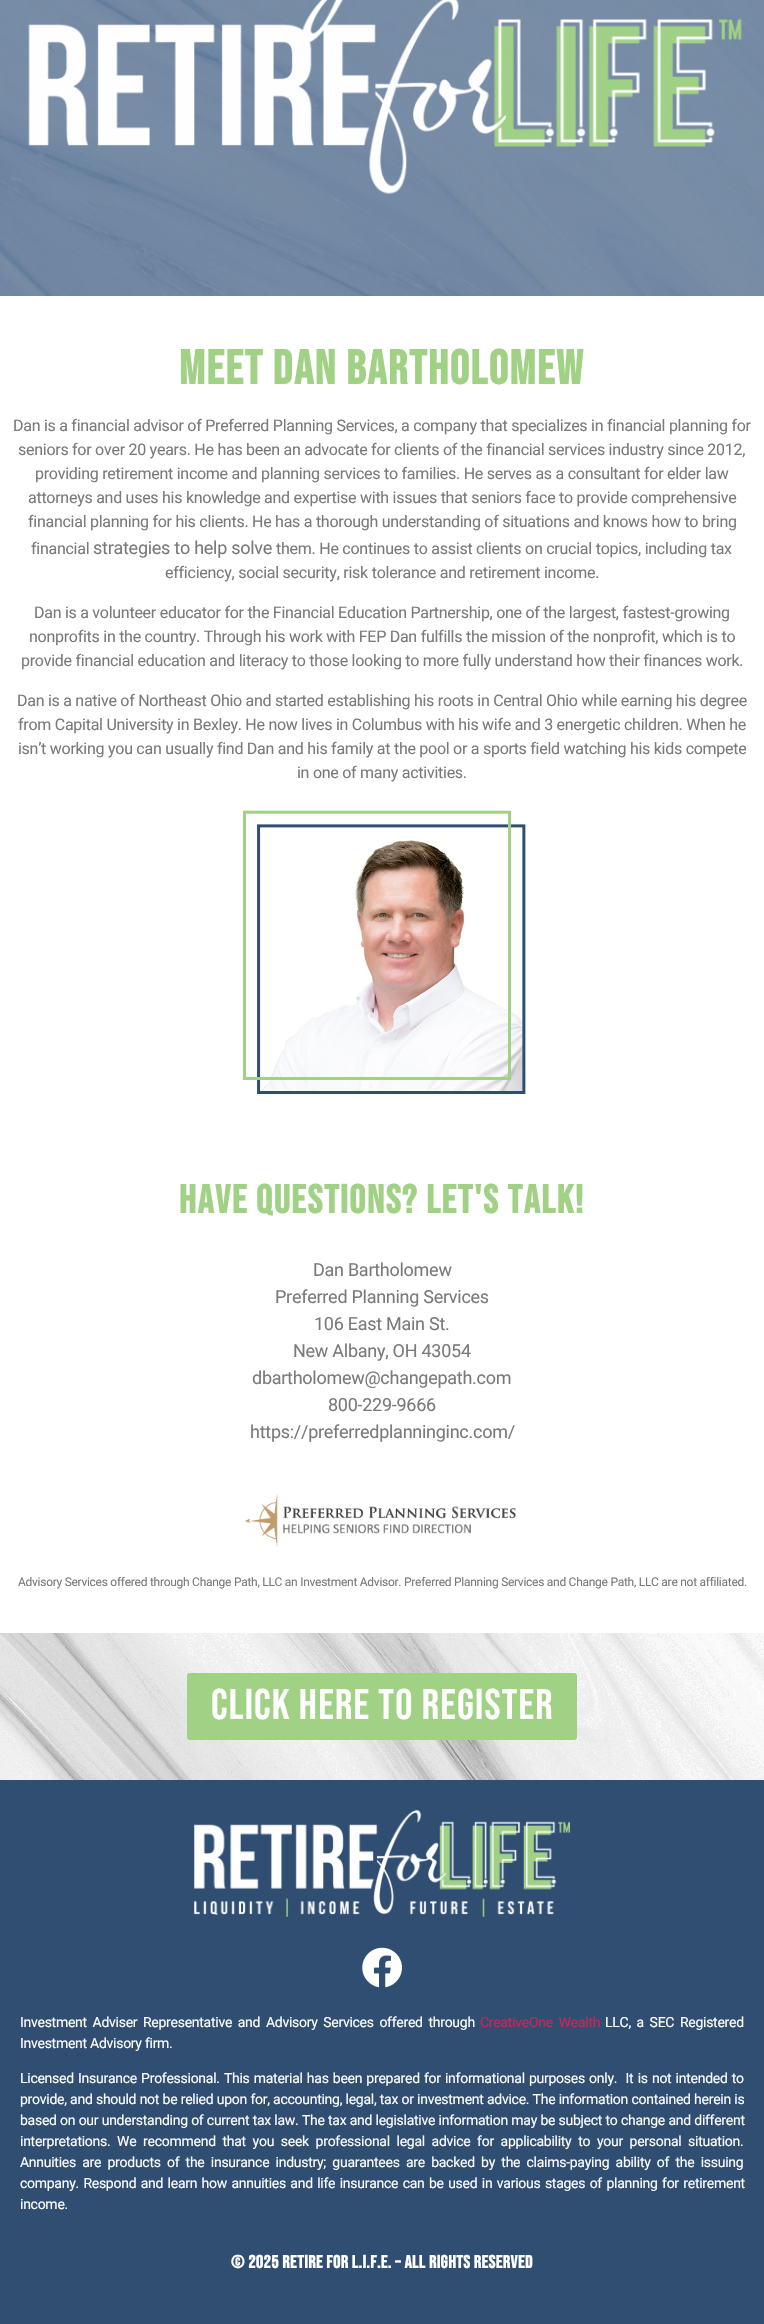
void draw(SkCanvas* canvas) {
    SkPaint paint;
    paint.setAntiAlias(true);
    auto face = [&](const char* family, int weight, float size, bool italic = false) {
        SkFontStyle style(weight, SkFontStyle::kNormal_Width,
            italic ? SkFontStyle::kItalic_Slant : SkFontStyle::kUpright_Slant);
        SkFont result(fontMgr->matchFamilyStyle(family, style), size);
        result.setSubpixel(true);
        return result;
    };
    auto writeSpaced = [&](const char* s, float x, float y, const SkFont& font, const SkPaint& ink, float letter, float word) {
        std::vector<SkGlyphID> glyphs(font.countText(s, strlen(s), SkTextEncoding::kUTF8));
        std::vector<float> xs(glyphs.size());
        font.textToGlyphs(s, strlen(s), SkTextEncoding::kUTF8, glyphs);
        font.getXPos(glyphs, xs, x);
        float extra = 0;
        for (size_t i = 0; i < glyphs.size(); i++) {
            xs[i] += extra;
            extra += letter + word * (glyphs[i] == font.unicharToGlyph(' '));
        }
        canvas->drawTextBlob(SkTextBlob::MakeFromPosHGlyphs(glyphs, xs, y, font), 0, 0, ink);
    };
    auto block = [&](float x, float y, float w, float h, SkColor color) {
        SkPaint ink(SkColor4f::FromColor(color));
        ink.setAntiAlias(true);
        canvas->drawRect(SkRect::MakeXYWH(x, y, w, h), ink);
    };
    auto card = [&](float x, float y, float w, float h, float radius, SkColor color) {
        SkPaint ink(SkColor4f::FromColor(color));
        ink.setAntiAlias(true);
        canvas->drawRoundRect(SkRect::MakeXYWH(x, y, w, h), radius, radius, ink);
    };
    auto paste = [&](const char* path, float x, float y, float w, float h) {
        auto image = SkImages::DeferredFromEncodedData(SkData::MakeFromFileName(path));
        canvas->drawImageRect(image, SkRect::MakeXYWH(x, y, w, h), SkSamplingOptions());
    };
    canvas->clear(SK_ColorWHITE);
    paste("pic1.png", 0, 0, 764, 296);
    paste("pic2.png", 28, 0, 714, 195);
    auto kFont1 = face("Bebas Neue", 700, 48);
    paint.setColor(SkColorSetRGB(161, 209, 133));
    writeSpaced("Meet Dan Bartholomew", 179, 384, kFont1, paint, 1.6f, 0);
    auto kFont2 = face("Roboto", 400, 16);
    paint.setColor(SkColorSetRGB(122, 122, 122));
    writeSpaced("Dan is a financial advisor of Preferred Planning Services, a company that specializes in financial planning for", 13, 431, kFont2, paint, -0.27f, 0);
    writeSpaced("seniors for over 20 years. He has been an advocate for clients of the financial services industry since 2012,", 18, 455, kFont2, paint, -0.27f, 0);
    writeSpaced("providing retirement income and planning services to families. He serves as a consultant for elder law", 35, 479, kFont2, paint, -0.27f, 0);
    writeSpaced("attorneys and uses his knowledge and expertise with issues that seniors face to provide comprehensive", 28, 503, kFont2, paint, -0.27f, 0);
    writeSpaced("financial planning for his clients. He has a thorough understanding of situations and knows how to bring", 28, 527, kFont2, paint, -0.27f, 0);
    writeSpaced("financial", 31, 554, kFont2, paint, -0.27f, 0);
    auto kFont3 = face("Roboto", 400, 18);
    writeSpaced("strategies to help solve", 93, 554, kFont3, paint, -0.27f, 0);
    writeSpaced("them. He continues to assist clients on crucial topics, including tax", 276, 554, kFont2, paint, -0.25f, 0);
    writeSpaced("efficiency, social security, risk tolerance and retirement income.", 165, 578, kFont2, paint, -0.25f, 0);
    writeSpaced("Dan is a volunteer educator for the Financial Education Partnership, one of the largest, fastest-growing", 34, 618, kFont2, paint, -0.27f, 0);
    writeSpaced("nonprofits in the country. Through his work with FEP Dan fulfills the mission of the nonprofit, which is to", 29, 642, kFont2, paint, -0.27f, 0);
    writeSpaced("provide financial education and literacy to those looking to more fully understand how their finances work.", 21, 666, kFont2, paint, -0.27f, 0);
    writeSpaced("Dan is a native of Northeast Ohio and started establishing his roots in Central Ohio while earning his degree", 17, 706, kFont2, paint, -0.27f, 0);
    writeSpaced("from Capital University in Bexley. He now lives in Columbus with his wife and 3 energetic children. When he", 18, 730, kFont2, paint, -0.27f, 0);
    writeSpaced("isn’t working you can usually find Dan and his family at the pool or a sports field watching his kids compete", 18, 754, kFont2, paint, -0.27f, 0);
    writeSpaced("in one of many activities.", 297, 778, kFont2, paint, -0.27f, 0);
    paste("pic3.png", 243, 810, 285, 284);
    auto kFont4 = face("Bebas Neue", 700, 40);
    paint.setColor(SkColorSetRGB(161, 209, 133));
    writeSpaced("Have Questions? Let's Talk!", 179, 1213, kFont4, paint, 1.6f, 0);
    paint.setColor(SkColorSetRGB(122, 122, 122));
    writeSpaced("Dan Bartholomew", 313, 1276, kFont3, paint, -0.27f, 0);
    writeSpaced("Preferred Planning Services", 275, 1303, kFont3, paint, -0.27f, 0);
    writeSpaced("106 East Main St.", 314, 1330, kFont3, paint, -0.27f, 0);
    writeSpaced("New Albany, OH 43054", 293, 1357, kFont3, paint, -0.27f, 0);
    writeSpaced("dbartholomew@changepath.com", 252, 1384, kFont3, paint, -0.27f, 0);
    writeSpaced("800-229-9666", 328, 1411, kFont3, paint, -0.27f, 0);
    writeSpaced("https://preferredplanninginc.com/", 250, 1438, kFont3, paint, -0.27f, 0);
    paste("pic4.png", 244, 1493, 272, 55);
    auto kFont5 = face("Roboto", 400, 12);
    writeSpaced("Advisory Services offered through Change Path, LLC an Investment Advisor. Preferred Planning Services and Change Path, LLC are not affiliated.", 18, 1586, kFont5, paint, -0.27f, 0);
    paste("pic5.png", 0, 1633, 764, 147);
    card(187, 1673, 390, 67, 3, SkColorSetRGB(161, 209, 133));
    auto kFont6 = face("Bebas Neue", 400, 43);
    paint.setColor(SK_ColorWHITE);
    writeSpaced("Click here To Register", 211, 1719, kFont6, paint, 1.2f, 0);
    block(0, 1780, 764, 544, SkColorSetRGB(47, 78, 114));
    paste("pic6.png", 194, 1810, 376, 107);
    paste("pic7.png", 362, 1947, 40, 41);
    auto kFont7 = face("Roboto", 400, 14);
    writeSpaced("Investment Adviser Representative and Advisory Services offered through", 20, 2027, kFont7, paint, -0.27f, 2.5f);
    paint.setColor(SkColorSetRGB(205, 38, 83));
    writeSpaced("CreativeOne Wealth", 480, 2027, kFont7, paint, -0.27f, 2.5f);
    paint.setColor(SK_ColorWHITE);
    writeSpaced("LLC, a SEC Registered", 605, 2027, kFont7, paint, -0.27f, 2.5f);
    writeSpaced("Investment Advisory firm.", 20, 2048, kFont7, paint, -0.27f, 0);
    writeSpaced("Licensed Insurance Professional. This material has been prepared for informational purposes only.  It is not intended to", 20, 2083, kFont7, paint, -0.27f, 1);
    writeSpaced("provide, and should not be relied upon for, accounting, legal, tax or investment advice. The information contained herein is", 20, 2104, kFont7, paint, -0.27f, 0.2f);
    writeSpaced("based on our understanding of current tax law. The tax and legislative information may be subject to change and different", 20, 2125, kFont7, paint, -0.27f, 0.2f);
    writeSpaced("interpretations. We recommend that you seek professional legal advice for applicability to your personal situation.", 20, 2146, kFont7, paint, -0.27f, 3.5f);
    writeSpaced("Annuities are products of the insurance industry; guarantees are backed by the claims-paying ability of the issuing", 20, 2167, kFont7, paint, -0.27f, 3.1f);
    writeSpaced("company. Respond and learn how annuities and life insurance can be used in various stages of planning for retirement", 20, 2188, kFont7, paint, -0.27f, 1.25f);
    writeSpaced("income.", 20, 2209, kFont7, paint, -0.27f, 0);
    auto kFont8 = face("Bebas Neue", 700, 18);
    writeSpaced("© 2025 Retire For L.I.F.E. – All Rights Reserved", 231, 2268, kFont8, paint, 0.5f, 0);
}
